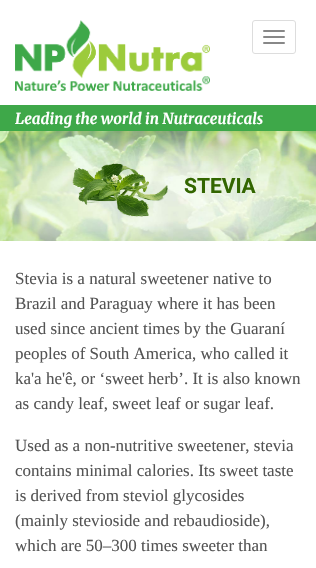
void draw(SkCanvas* canvas) {
    SkPaint paint;
    paint.setAntiAlias(true);
    auto face = [&](const char* family, int weight, float size, bool italic = false) {
        SkFontStyle style(weight, SkFontStyle::kNormal_Width,
            italic ? SkFontStyle::kItalic_Slant : SkFontStyle::kUpright_Slant);
        SkFont result(fontMgr->matchFamilyStyle(family, style), size);
        result.setSubpixel(true);
        return result;
    };
    auto write = [&](const char* s, float x, float y, const SkFont& font, SkColor color) {
        SkPaint ink(SkColor4f::FromColor(color));
        ink.setAntiAlias(true);
        canvas->drawString(s, x, y, font, ink);
    };
    auto block = [&](float x, float y, float w, float h, SkColor color) {
        SkPaint ink(SkColor4f::FromColor(color));
        ink.setAntiAlias(true);
        canvas->drawRect(SkRect::MakeXYWH(x, y, w, h), ink);
    };
    auto card = [&](float x, float y, float w, float h, float radius, SkColor color) {
        SkPaint ink(SkColor4f::FromColor(color));
        ink.setAntiAlias(true);
        canvas->drawRoundRect(SkRect::MakeXYWH(x, y, w, h), radius, radius, ink);
    };
    auto paste = [&](const char* path, float x, float y, float w, float h) {
        auto image = SkImages::DeferredFromEncodedData(SkData::MakeFromFileName(path));
        canvas->drawImageRect(image, SkRect::MakeXYWH(x, y, w, h), SkSamplingOptions());
    };
    canvas->clear(SK_ColorWHITE);
    paste("pic1.png", 15, 20, 195, 71);
    paint.setStyle(SkPaint::kStroke_Style);
    paint.setStrokeWidth(1);
    paint.setColor(SkColorSetRGB(221, 221, 221));
    canvas->drawRoundRect(SkRect::MakeXYWH(252.5f, 20.5f, 43, 33), 2.5f, 2.5f, paint);
    card(263, 30, 22, 2, 1, SkColorSetRGB(136, 136, 136));
    card(263, 36, 22, 2, 1, SkColorSetRGB(136, 136, 136));
    card(263, 42, 22, 2, 1, SkColorSetRGB(136, 136, 136));
    block(0, 105, 316, 26, SkColorSetRGB(62, 168, 73));
    auto kFont1 = face("Merriweather", 700, 15, true);
    write("Leading the world in Nutraceuticals", 15, 124, kFont1, SK_ColorWHITE);
    paste("pic2.png", 0, 131, 316, 110);
    paste("pic3.png", 72, 163, 96, 54);
    auto kFont2 = face("Roboto", 700, 21);
    write("STEVIA", 184, 193, kFont2, SkColorSetRGB(51, 102, 0));
    auto kFont3 = face("Liberation Serif", 400, 17);
    write("Stevia is a natural sweetener native to", 15, 284, kFont3, SkColorSetRGB(84, 84, 84));
    write("Brazil and Paraguay where it has been", 15, 309, kFont3, SkColorSetRGB(84, 84, 84));
    write("used since ancient times by the Guaraní", 15, 334, kFont3, SkColorSetRGB(84, 84, 84));
    write("peoples of South America, who called it", 15, 359, kFont3, SkColorSetRGB(84, 84, 84));
    write("ka'a he'ê, or ‘sweet herb’. It is also known", 15, 384, kFont3, SkColorSetRGB(84, 84, 84));
    write("as candy leaf, sweet leaf or sugar leaf.", 15, 409, kFont3, SkColorSetRGB(84, 84, 84));
    write("Used as a non-nutritive sweetener, stevia", 15, 451, kFont3, SkColorSetRGB(84, 84, 84));
    write("contains minimal calories. Its sweet taste", 15, 476, kFont3, SkColorSetRGB(84, 84, 84));
    write("is derived from steviol glycosides", 15, 501, kFont3, SkColorSetRGB(84, 84, 84));
    write("(mainly stevioside and rebaudioside),", 15, 526, kFont3, SkColorSetRGB(84, 84, 84));
    write("which are 50–300 times sweeter than", 15, 551, kFont3, SkColorSetRGB(84, 84, 84));
}
